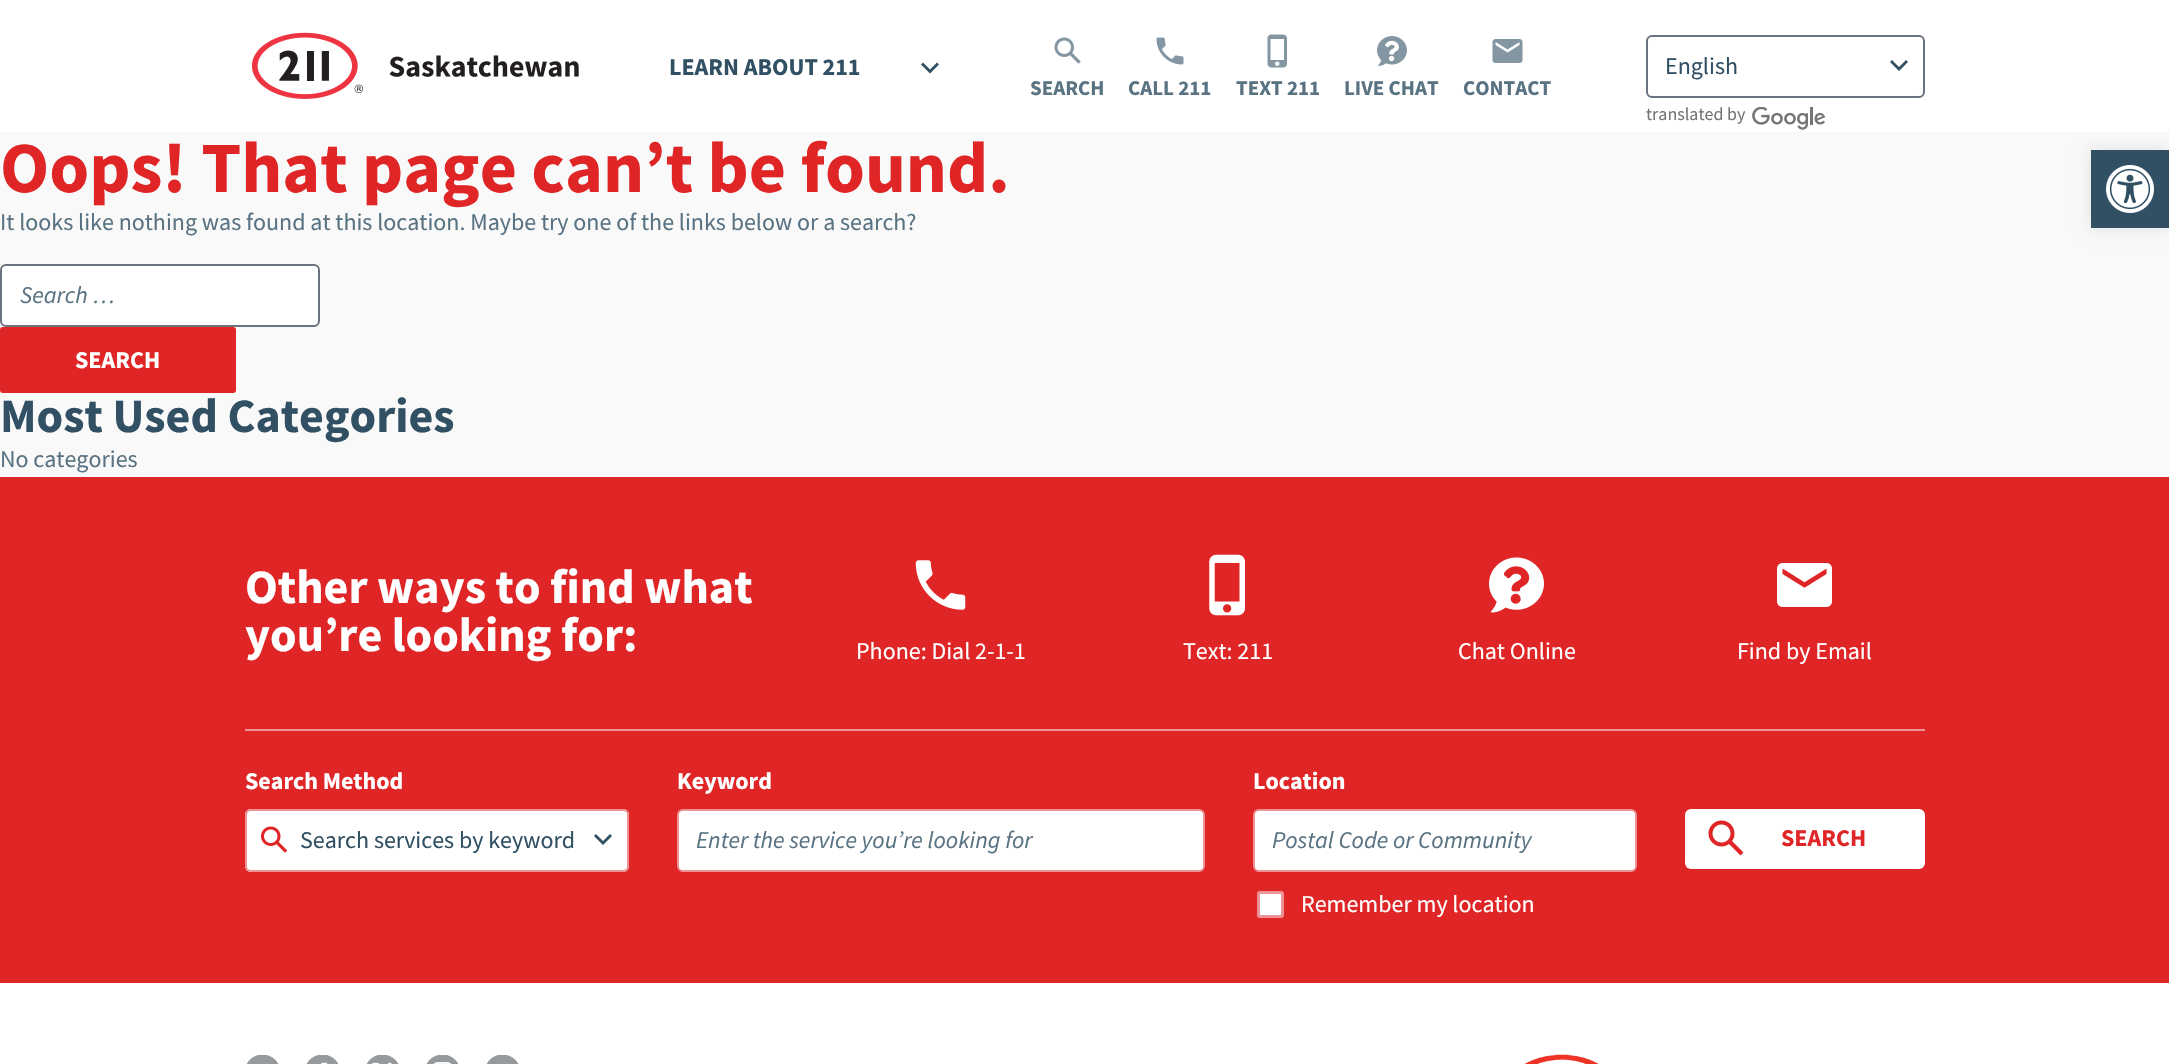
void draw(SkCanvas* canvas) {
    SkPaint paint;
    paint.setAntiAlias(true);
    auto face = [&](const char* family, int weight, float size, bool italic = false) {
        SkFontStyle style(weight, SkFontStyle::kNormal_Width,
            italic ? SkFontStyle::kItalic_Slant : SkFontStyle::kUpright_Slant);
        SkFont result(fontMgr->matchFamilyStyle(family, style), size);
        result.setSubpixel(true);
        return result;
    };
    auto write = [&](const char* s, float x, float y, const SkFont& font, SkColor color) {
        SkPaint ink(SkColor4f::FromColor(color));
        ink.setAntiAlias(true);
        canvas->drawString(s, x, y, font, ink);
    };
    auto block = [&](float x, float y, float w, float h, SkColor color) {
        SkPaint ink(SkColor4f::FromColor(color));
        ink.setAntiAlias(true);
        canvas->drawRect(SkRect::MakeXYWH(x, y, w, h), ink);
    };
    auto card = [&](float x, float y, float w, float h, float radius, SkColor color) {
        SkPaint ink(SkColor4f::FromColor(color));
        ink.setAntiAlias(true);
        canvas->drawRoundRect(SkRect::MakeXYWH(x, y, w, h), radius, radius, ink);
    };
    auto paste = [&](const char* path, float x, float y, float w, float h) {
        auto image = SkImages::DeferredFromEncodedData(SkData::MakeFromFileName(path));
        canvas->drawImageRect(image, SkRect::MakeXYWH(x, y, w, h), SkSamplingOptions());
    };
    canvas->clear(SkColorSetRGB(249, 249, 249));
    block(0, 0, 2169, 132, SK_ColorWHITE);
    paste("pic1.png", 251, 32, 328, 67);
    auto kFont1 = face("Source Sans Pro", 700, 24);
    write("LEARN ABOUT 211", 669, 75, kFont1, SkColorSetRGB(49, 80, 100));
    paint.setColor(SkColorSetRGB(49, 80, 100));
    canvas->drawPath(SkPathBuilder().moveTo(923, 62.5f).lineTo(930, 69.5f).lineTo(937, 62.5f).lineTo(939, 64.5f).lineTo(930, 73.5f).lineTo(921, 64.5f).close().detach(), paint);
    paste("pic2.png", 1054, 37, 27, 27);
    auto kFont2 = face("Source Sans Pro", 700, 21);
    write("SEARCH", 1030, 95, kFont2, SkColorSetRGB(90, 115, 131));
    paste("pic3.png", 1156, 37, 28, 28);
    write("CALL 211", 1128, 95, kFont2, SkColorSetRGB(90, 115, 131));
    paste("pic4.png", 1267, 34, 20, 34);
    write("TEXT 211", 1236, 95, kFont2, SkColorSetRGB(90, 115, 131));
    paste("pic5.png", 1377, 36, 30, 30);
    write("LIVE CHAT", 1344, 95, kFont2, SkColorSetRGB(90, 115, 131));
    paste("pic6.png", 1492, 39, 31, 24);
    write("CONTACT", 1463, 95, kFont2, SkColorSetRGB(90, 115, 131));
    canvas->drawPath(SkPathBuilder().moveTo(1906, 60).lineTo(1899, 67).lineTo(1892, 60).lineTo(1890, 62).lineTo(1899, 71).lineTo(1908, 62).close().detach(), paint);
    paint.setStyle(SkPaint::kStroke_Style);
    paint.setStrokeWidth(2);
    paint.setColor(SkColorSetRGB(107, 114, 128));
    canvas->drawRoundRect(SkRect::MakeXYWH(1647, 36, 277, 61), 5, 5, paint);
    auto kFont3 = face("Source Sans Pro", 400, 24);
    write("English", 1665, 74, kFont3, SkColorSetRGB(49, 80, 100));
    auto kFont4 = face("Source Sans Pro", 400, 18);
    write("translated by", 1646, 120, kFont4, SkColorSetRGB(117, 117, 117));
    paste("pic7.png", 1752, 107, 74, 23);
    auto kFont5 = face("Source Sans Pro", 700, 72);
    write("Oops! That page can’t be found.", 0, 192, kFont5, SkColorSetRGB(224, 37, 38));
    write("It looks like nothing was found at this location. Maybe try one of the links below or a search?", 0, 230, kFont3, SkColorSetRGB(90, 115, 131));
    paint.setStyle(SkPaint::kFill_Style);
    paint.setColor(SK_ColorWHITE);
    canvas->drawRoundRect(SkRect::MakeXYWH(1, 265, 318, 61), 5, 5, paint);
    paint.setStyle(SkPaint::kStroke_Style);
    paint.setColor(SkColorSetRGB(107, 114, 128));
    canvas->drawRoundRect(SkRect::MakeXYWH(1, 265, 318, 61), 5, 5, paint);
    auto kFont6 = face("Source Sans Pro", 400, 24, true);
    write("Search …", 20, 303, kFont6, SkColorSetRGB(90, 115, 131));
    paint.setStyle(SkPaint::kFill_Style);
    paint.setColor(SkColorSetRGB(224, 37, 38));
    canvas->drawRoundRect(SkRect::MakeXYWH(1.5f, 328.5f, 233, 63), 1.5f, 1.5f, paint);
    paint.setStyle(SkPaint::kStroke_Style);
    paint.setStrokeWidth(3);
    canvas->drawRoundRect(SkRect::MakeXYWH(1.5f, 328.5f, 233, 63), 1.5f, 1.5f, paint);
    write("SEARCH", 75, 368, kFont1, SK_ColorWHITE);
    auto kFont7 = face("Source Sans Pro", 700, 48);
    write("Most Used Categories", 0, 432, kFont7, SkColorSetRGB(49, 80, 100));
    write("No categories", 0, 467, kFont3, SkColorSetRGB(90, 115, 131));
    block(0, 477, 2169, 506, SkColorSetRGB(224, 37, 38));
    block(245, 729, 1680, 2, SkColorSetRGB(236, 147, 149));
    write("Other ways to find what", 245, 603, kFont7, SK_ColorWHITE);
    write("you’re looking for:", 245, 651, kFont7, SK_ColorWHITE);
    paste("pic8.png", 915, 560, 51, 50);
    write("Phone: Dial 2-1-1", 856, 659, kFont3, SK_ColorWHITE);
    paste("pic9.png", 1209, 554, 36, 62);
    write("Text: 211", 1183, 659, kFont3, SK_ColorWHITE);
    paste("pic10.png", 1489, 557, 55, 56);
    write("Chat Online", 1458, 659, kFont3, SK_ColorWHITE);
    paste("pic11.png", 1777, 563, 55, 44);
    write("Find by Email", 1737, 659, kFont3, SK_ColorWHITE);
    write("Search Method", 245, 789, kFont1, SK_ColorWHITE);
    card(245, 809, 384, 63, 6, SK_ColorWHITE);
    paint.setStyle(SkPaint::kFill_Style);
    paint.setColor(SkColorSetRGB(49, 80, 100));
    canvas->drawPath(SkPathBuilder().moveTo(610, 834).lineTo(603, 841).lineTo(596, 834).lineTo(594, 836).lineTo(603, 845).lineTo(612, 836).close().detach(), paint);
    paint.setStyle(SkPaint::kStroke_Style);
    paint.setStrokeWidth(2);
    paint.setColor(SkColorSetRGB(236, 147, 149));
    canvas->drawRoundRect(SkRect::MakeXYWH(246, 810, 382, 61), 5, 5, paint);
    paste("pic12.png", 261, 826, 27, 27);
    write("Search services by keyword", 300, 848, kFont3, SkColorSetRGB(49, 80, 100));
    write("Keyword", 677, 789, kFont1, SK_ColorWHITE);
    paint.setStyle(SkPaint::kFill_Style);
    paint.setColor(SK_ColorWHITE);
    canvas->drawRoundRect(SkRect::MakeXYWH(678, 810, 526, 61), 5, 5, paint);
    paint.setStyle(SkPaint::kStroke_Style);
    paint.setColor(SkColorSetRGB(236, 147, 149));
    canvas->drawRoundRect(SkRect::MakeXYWH(678, 810, 526, 61), 5, 5, paint);
    write("Enter the service you’re looking for", 696, 848, kFont6, SkColorSetRGB(90, 115, 131));
    write("Location", 1253, 789, kFont1, SK_ColorWHITE);
    paint.setStyle(SkPaint::kFill_Style);
    paint.setColor(SK_ColorWHITE);
    canvas->drawRoundRect(SkRect::MakeXYWH(1254, 810, 382, 61), 5, 5, paint);
    paint.setStyle(SkPaint::kStroke_Style);
    paint.setColor(SkColorSetRGB(236, 147, 149));
    canvas->drawRoundRect(SkRect::MakeXYWH(1254, 810, 382, 61), 5, 5, paint);
    write("Postal Code or Community", 1272, 848, kFont6, SkColorSetRGB(90, 115, 131));
    paint.setStyle(SkPaint::kFill_Style);
    paint.setColor(SK_ColorWHITE);
    canvas->drawRoundRect(SkRect::MakeXYWH(1258.5f, 892.5f, 24, 24), 1.5f, 1.5f, paint);
    paint.setStyle(SkPaint::kStroke_Style);
    paint.setStrokeWidth(3);
    paint.setColor(SkColorSetRGB(236, 147, 149));
    canvas->drawRoundRect(SkRect::MakeXYWH(1258.5f, 892.5f, 24, 24), 1.5f, 1.5f, paint);
    write("Remember my location", 1301, 912, kFont3, SK_ColorWHITE);
    card(1685, 809, 240, 60, 6, SK_ColorWHITE);
    paste("pic13.png", 1708, 820, 36, 36);
    write("SEARCH", 1781, 846, kFont1, SkColorSetRGB(224, 37, 38));
    block(0, 983, 2169, 81, SK_ColorWHITE);
    paste("pic14.png", 246, 1055, 33, 9);
    paste("pic15.png", 306, 1055, 33, 9);
    paste("pic16.png", 366, 1055, 33, 9);
    paste("pic17.png", 426, 1055, 33, 9);
    paste("pic18.png", 486, 1055, 33, 9);
    paste("pic19.png", 1524, 1054, 75, 10);
    paint.setStyle(SkPaint::kFill_Style);
    paint.setColor(SkColorSetARGB(26, 0, 0, 0));
    paint.setMaskFilter(SkMaskFilter::MakeBlur(kNormal_SkBlurStyle, 7.5f));
    canvas->drawRect(SkRect::MakeXYWH(2091, 150, 78, 78), paint);
    paint.setMaskFilter(nullptr);
    block(2091, 150, 78, 78, SkColorSetRGB(49, 80, 100));
    paste("pic20.png", 2106, 165, 48, 48);
}
